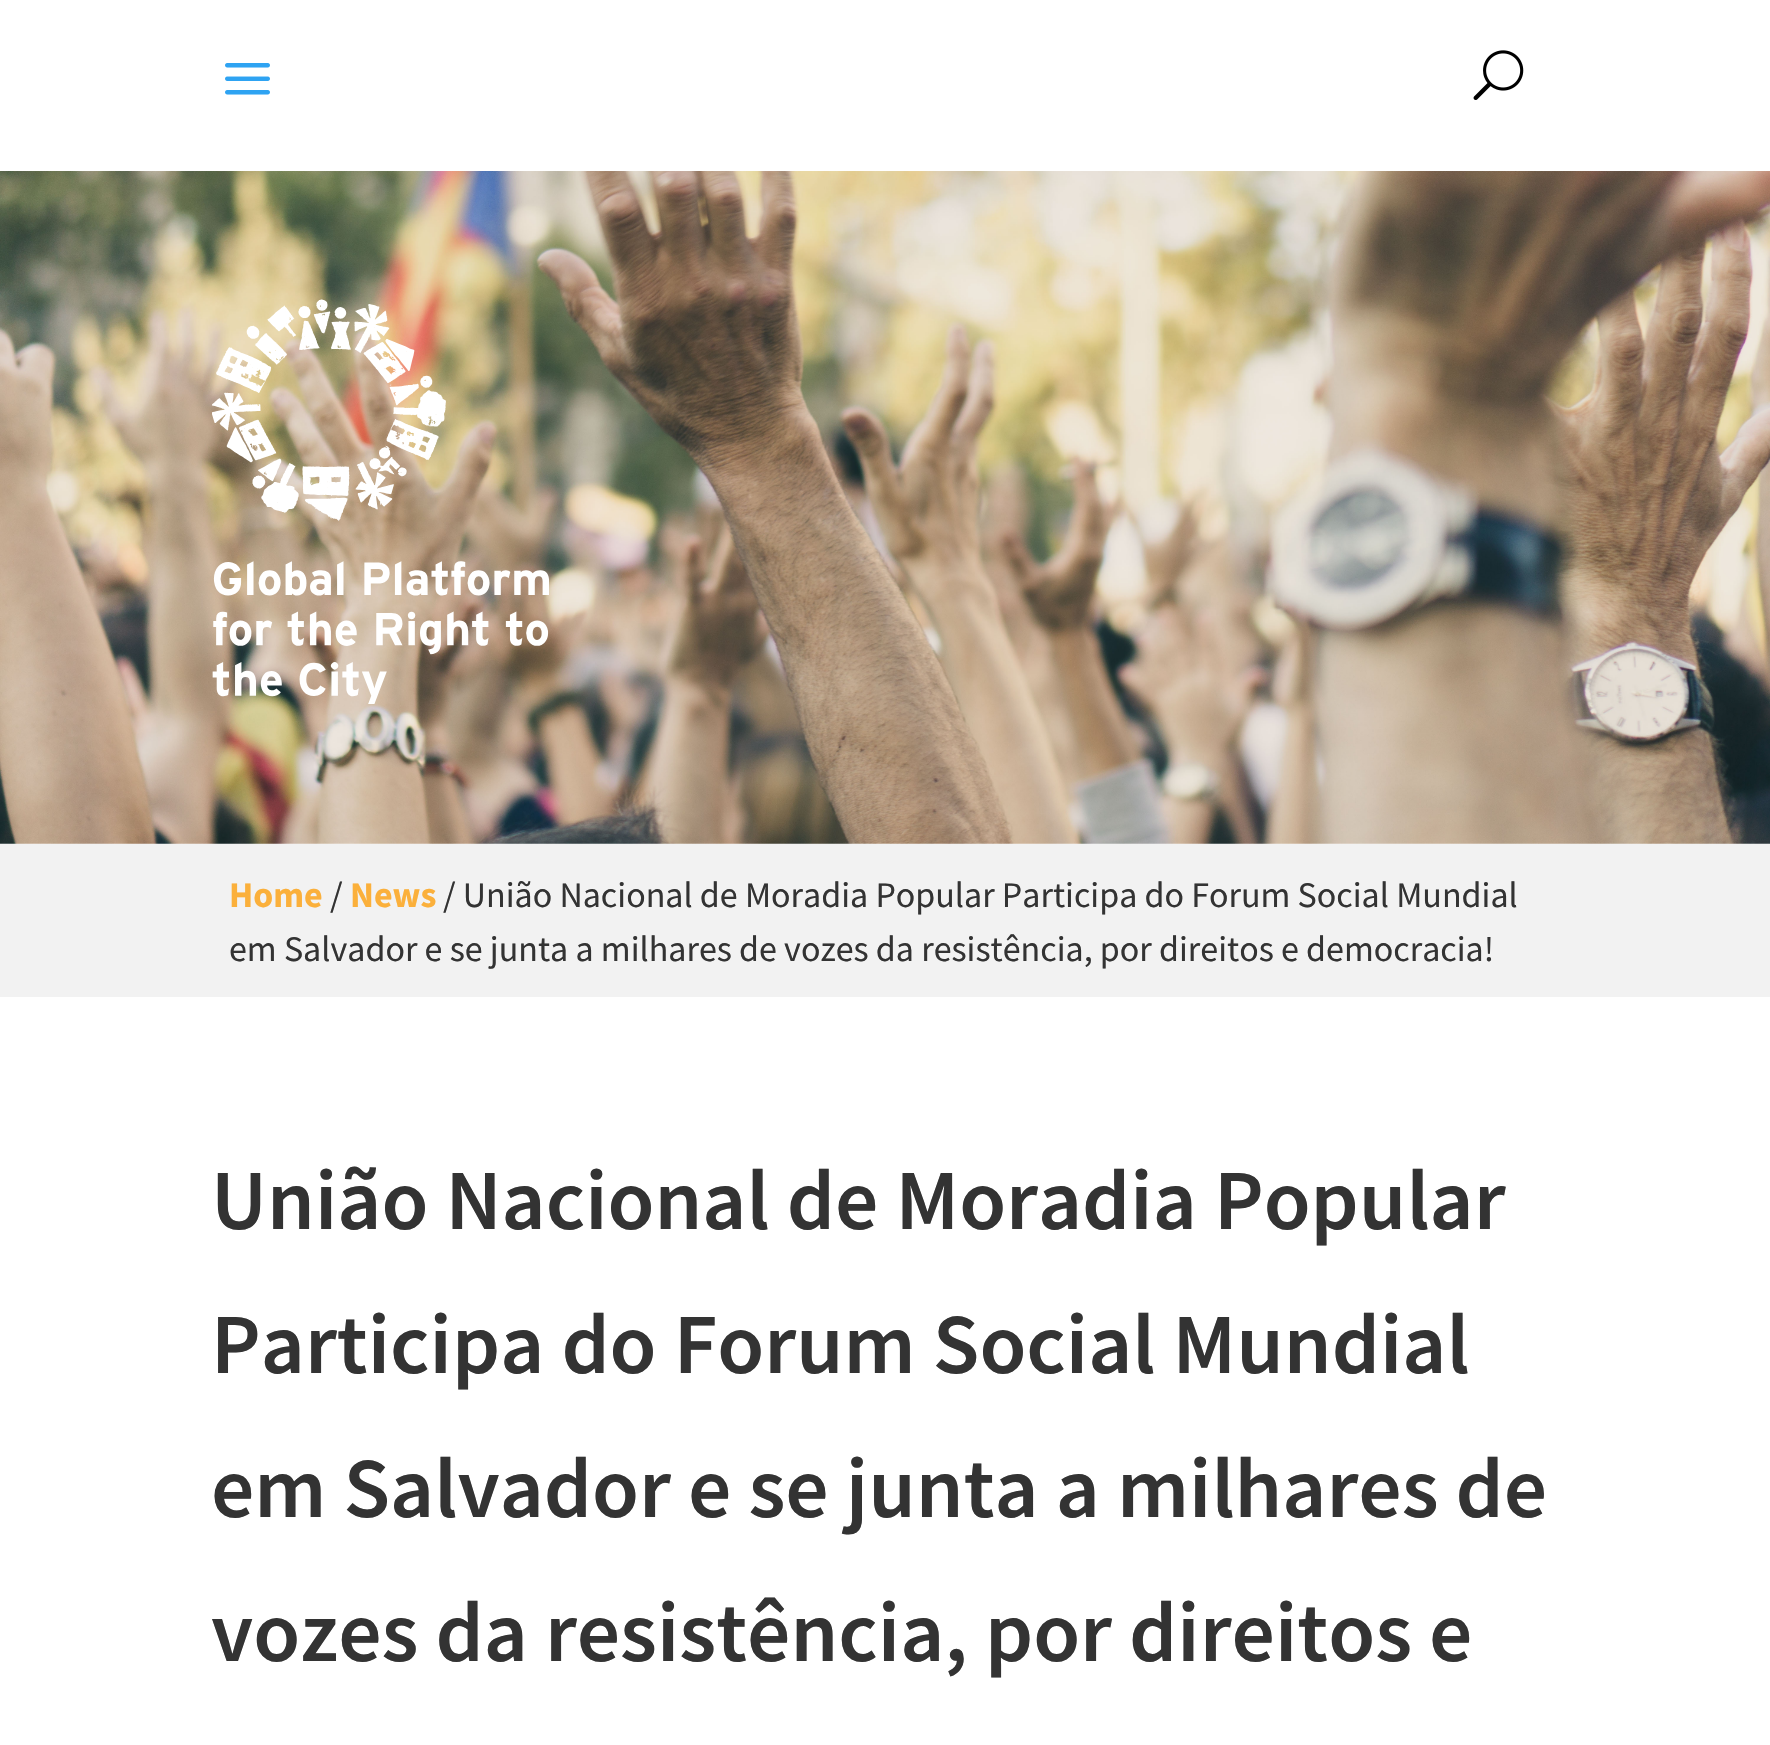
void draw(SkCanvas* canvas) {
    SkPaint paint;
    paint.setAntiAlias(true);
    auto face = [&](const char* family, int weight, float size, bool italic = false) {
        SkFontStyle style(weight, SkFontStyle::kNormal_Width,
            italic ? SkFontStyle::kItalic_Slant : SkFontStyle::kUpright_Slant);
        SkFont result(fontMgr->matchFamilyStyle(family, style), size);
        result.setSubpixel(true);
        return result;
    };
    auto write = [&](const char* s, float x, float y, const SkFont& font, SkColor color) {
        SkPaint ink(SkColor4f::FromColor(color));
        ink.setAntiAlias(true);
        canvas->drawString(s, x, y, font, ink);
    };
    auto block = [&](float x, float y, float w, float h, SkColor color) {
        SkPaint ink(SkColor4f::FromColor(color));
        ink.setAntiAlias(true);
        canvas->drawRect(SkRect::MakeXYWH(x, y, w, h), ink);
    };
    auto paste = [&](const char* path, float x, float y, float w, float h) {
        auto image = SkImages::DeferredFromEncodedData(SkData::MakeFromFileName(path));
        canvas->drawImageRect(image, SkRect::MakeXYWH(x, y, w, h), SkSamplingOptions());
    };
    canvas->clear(SK_ColorWHITE);
    paste("pic1.png", 225, 63, 45, 32);
    paste("pic2.png", 1473, 50, 51, 50);
    paste("pic3.png", 0, 171, 1770, 673);
    paste("pic4.png", 212, 299, 337, 405);
    block(0, 844, 1770, 153, SkColorSetRGB(242, 242, 242));
    auto kFont1 = face("Source Sans Pro", 700, 36);
    write("Home", 229, 907, kFont1, SkColorSetRGB(251, 176, 59));
    auto kFont2 = face("Source Sans Pro", 400, 36);
    write("/", 330, 907, kFont2, SkColorSetRGB(51, 51, 51));
    write("News", 350, 907, kFont1, SkColorSetRGB(251, 176, 59));
    write("/ União Nacional de Moradia Popular Participa do Forum Social Mundial", 443, 907, kFont2, SkColorSetRGB(51, 51, 51));
    write("em Salvador e se junta a milhares de vozes da resistência, por direitos e democracia!", 229, 961, kFont2, SkColorSetRGB(51, 51, 51));
    auto kFont3 = face("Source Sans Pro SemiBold", 600, 85.5f);
    write("União Nacional de Moradia Popular", 211, 1229, kFont3, SkColorSetRGB(51, 51, 51));
    write("Participa do Forum Social Mundial", 211, 1373, kFont3, SkColorSetRGB(51, 51, 51));
    write("em Salvador e se junta a milhares de", 211, 1517, kFont3, SkColorSetRGB(51, 51, 51));
    write("vozes da resistência, por direitos e", 211, 1661, kFont3, SkColorSetRGB(51, 51, 51));
}
